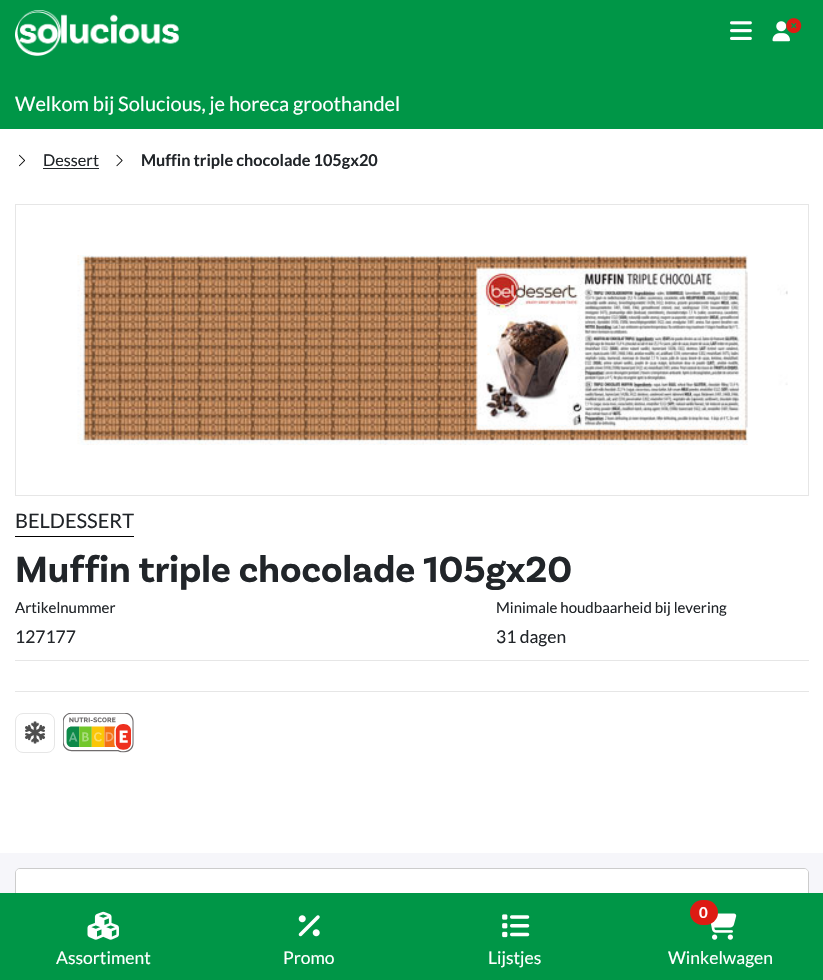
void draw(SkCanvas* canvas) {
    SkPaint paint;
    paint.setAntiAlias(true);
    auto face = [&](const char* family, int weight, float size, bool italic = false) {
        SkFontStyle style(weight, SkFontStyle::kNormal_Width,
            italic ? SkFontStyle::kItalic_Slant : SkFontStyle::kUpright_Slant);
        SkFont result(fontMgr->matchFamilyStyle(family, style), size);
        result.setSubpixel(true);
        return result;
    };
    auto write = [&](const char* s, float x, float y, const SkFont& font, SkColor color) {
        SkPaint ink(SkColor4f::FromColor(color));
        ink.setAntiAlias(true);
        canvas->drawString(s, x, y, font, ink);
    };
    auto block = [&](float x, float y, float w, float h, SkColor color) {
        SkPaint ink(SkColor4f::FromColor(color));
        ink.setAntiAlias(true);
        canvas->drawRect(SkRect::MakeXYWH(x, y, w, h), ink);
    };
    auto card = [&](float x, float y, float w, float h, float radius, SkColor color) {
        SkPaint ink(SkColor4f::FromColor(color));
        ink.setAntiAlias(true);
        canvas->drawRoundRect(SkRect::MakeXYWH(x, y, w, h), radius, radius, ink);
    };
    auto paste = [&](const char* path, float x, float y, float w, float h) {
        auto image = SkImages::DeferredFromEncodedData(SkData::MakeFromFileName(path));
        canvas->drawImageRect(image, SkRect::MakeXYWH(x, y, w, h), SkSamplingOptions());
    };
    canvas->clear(SK_ColorWHITE);
    block(0, 0, 823, 129, SkColorSetRGB(0, 150, 71));
    paste("pic1.png", 15, 10, 164, 46);
    paste("pic2.png", 730, 21, 22, 19);
    paste("pic3.png", 772, 21, 18, 21);
    paste("pic4.png", 786, 18, 16, 16);
    auto kFont1 = face("Lato", 400, 20);
    write("Welkom bij Solucious, je horeca groothandel", 15, 111, kFont1, SK_ColorWHITE);
    paste("pic5.png", 19, 154, 6, 13);
    auto kFont2 = face("Lato", 400, 16.25f);
    write("Dessert", 43, 166, kFont2, SkColorSetRGB(33, 37, 41));
    block(43, 168, 56, 1, SkColorSetRGB(33, 37, 41));
    paste("pic6.png", 116, 154, 7, 13);
    auto kFont3 = face("Lato", 700, 16.25f);
    write("Muffin triple chocolade 105gx20", 141, 166, kFont3, SkColorSetRGB(33, 37, 41));
    paint.setStyle(SkPaint::kStroke_Style);
    paint.setStrokeWidth(1);
    paint.setColor(SkColorSetRGB(230, 230, 230));
    canvas->drawRect(SkRect::MakeXYWH(15.5f, 204.5f, 793, 291), paint);
    paste("pic7.png", 77, 255, 711, 190);
    block(15, 536, 119, 1, SK_ColorBLACK);
    write("BELDESSERT", 15, 528, kFont1, SkColorSetRGB(33, 37, 41));
    auto kFont4 = face("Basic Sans", 700, 38.4f);
    write("Muffin triple chocolade 105gx20", 15, 582, kFont4, SkColorSetRGB(33, 37, 41));
    block(15, 660, 794, 1, SkColorSetRGB(230, 230, 230));
    auto kFont5 = face("Lato", 400, 15);
    write("Artikelnummer", 15, 613, kFont5, SkColorSetRGB(33, 37, 41));
    auto kFont6 = face("Lato", 400, 17.5f);
    write("127177", 15, 643, kFont6, SkColorSetRGB(33, 37, 41));
    write("Minimale houdbaarheid bij levering", 496, 613, kFont5, SkColorSetRGB(33, 37, 41));
    write("31 dagen", 496, 643, kFont6, SkColorSetRGB(33, 37, 41));
    block(15, 691, 794, 1, SkColorSetRGB(230, 230, 230));
    canvas->drawRoundRect(SkRect::MakeXYWH(15.5f, 713.5f, 39, 39), 7.5f, 7.5f, paint);
    paste("pic8.png", 24, 721, 22, 23);
    paste("pic9.png", 63, 713, 71, 40);
    block(0, 853, 823, 40, SkColorSetRGB(246, 246, 250));
    paint.setColor(SkColorSetRGB(204, 204, 204));
    canvas->drawRoundRect(SkRect::MakeXYWH(15.5f, 868.5f, 793, 66), 4.5f, 4.5f, paint);
    card(16, 869, 792, 65, 4, SK_ColorWHITE);
    block(0, 893, 823, 87, SkColorSetRGB(0, 150, 71));
    paste("pic10.png", 87, 911, 32, 29);
    write("Assortiment", 56, 964, kFont6, SK_ColorWHITE);
    paste("pic11.png", 298, 915, 22, 22);
    write("Promo", 283, 964, kFont6, SK_ColorWHITE);
    paste("pic12.png", 502, 914, 28, 24);
    write("Lijstjes", 488, 964, kFont6, SK_ColorWHITE);
    paste("pic13.png", 710, 913, 27, 27);
    card(690, 900, 28, 25, 12.5f, SkColorSetRGB(221, 27, 19));
    auto kFont7 = face("Lato", 700, 15);
    write("0", 699, 918, kFont7, SK_ColorWHITE);
    write("Winkelwagen", 668, 964, kFont6, SK_ColorWHITE);
}
